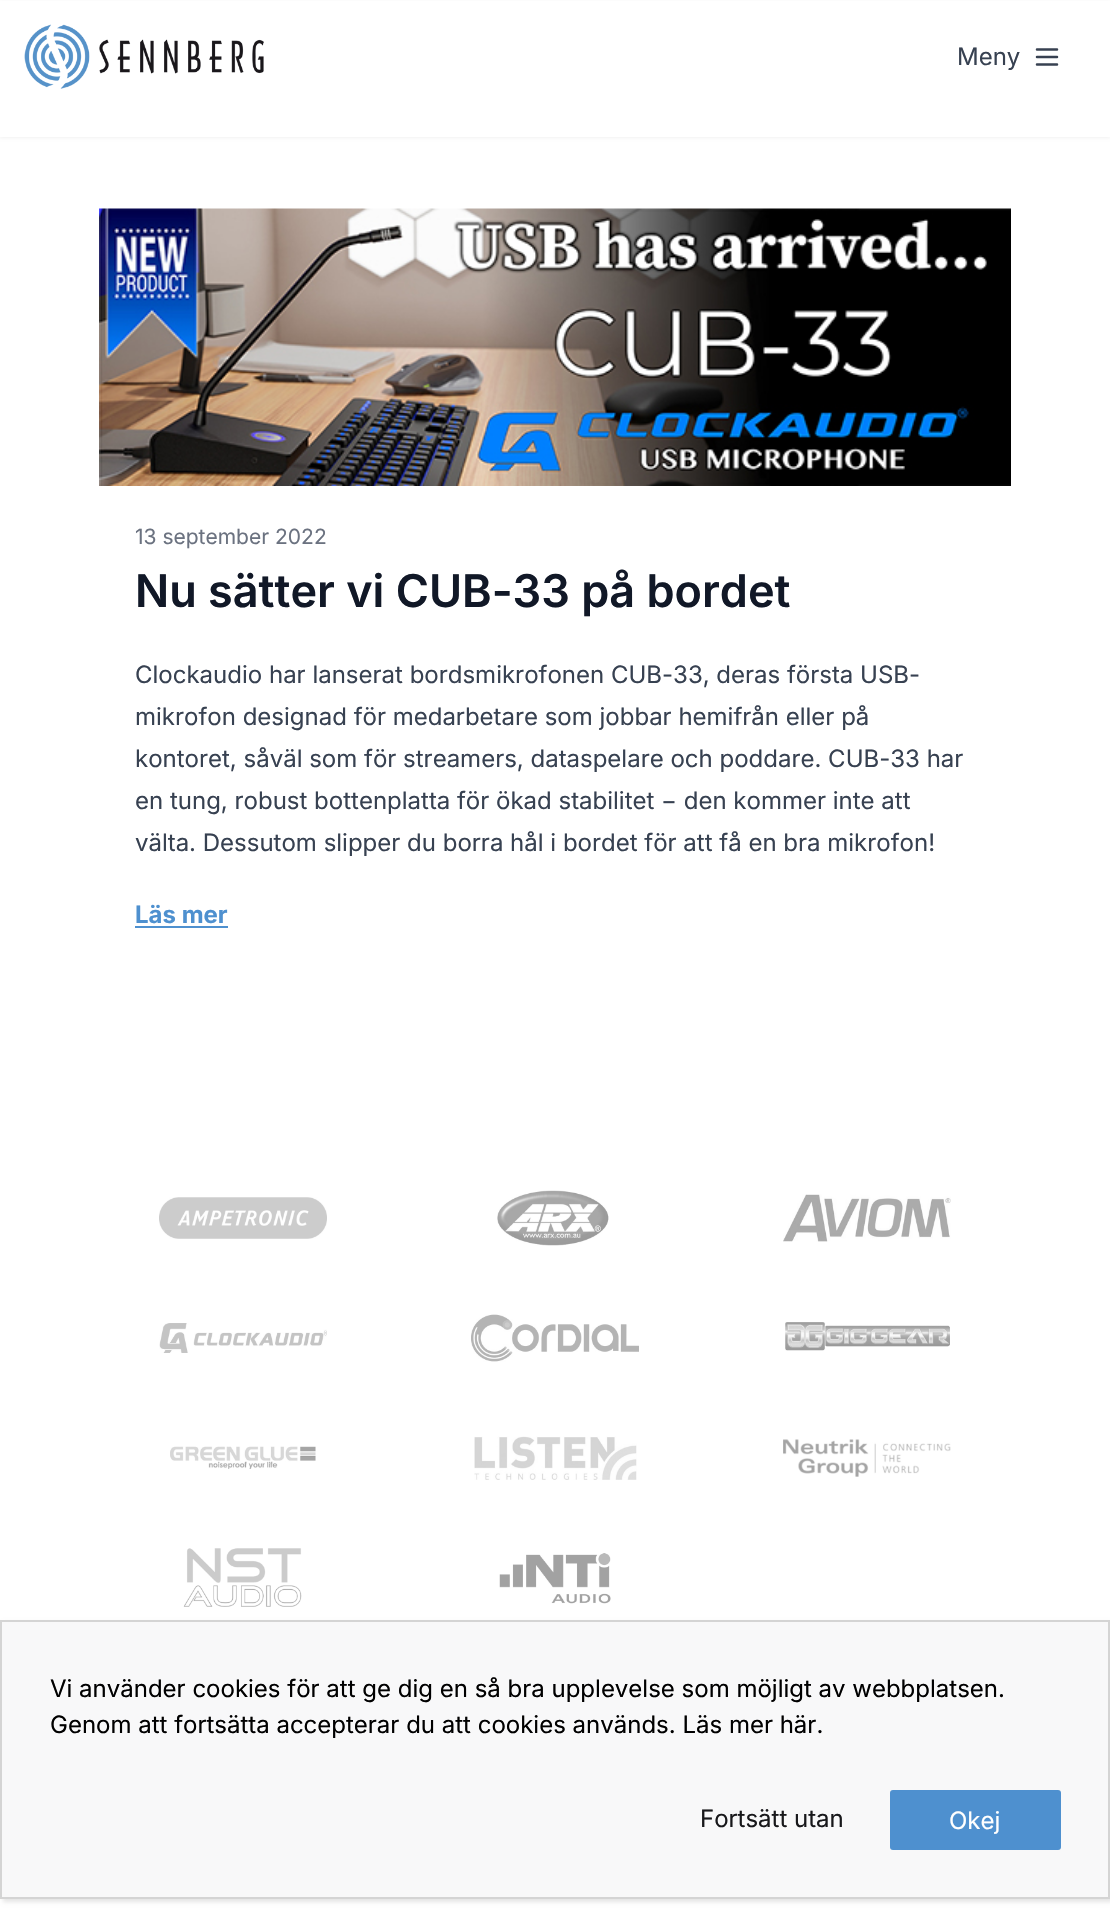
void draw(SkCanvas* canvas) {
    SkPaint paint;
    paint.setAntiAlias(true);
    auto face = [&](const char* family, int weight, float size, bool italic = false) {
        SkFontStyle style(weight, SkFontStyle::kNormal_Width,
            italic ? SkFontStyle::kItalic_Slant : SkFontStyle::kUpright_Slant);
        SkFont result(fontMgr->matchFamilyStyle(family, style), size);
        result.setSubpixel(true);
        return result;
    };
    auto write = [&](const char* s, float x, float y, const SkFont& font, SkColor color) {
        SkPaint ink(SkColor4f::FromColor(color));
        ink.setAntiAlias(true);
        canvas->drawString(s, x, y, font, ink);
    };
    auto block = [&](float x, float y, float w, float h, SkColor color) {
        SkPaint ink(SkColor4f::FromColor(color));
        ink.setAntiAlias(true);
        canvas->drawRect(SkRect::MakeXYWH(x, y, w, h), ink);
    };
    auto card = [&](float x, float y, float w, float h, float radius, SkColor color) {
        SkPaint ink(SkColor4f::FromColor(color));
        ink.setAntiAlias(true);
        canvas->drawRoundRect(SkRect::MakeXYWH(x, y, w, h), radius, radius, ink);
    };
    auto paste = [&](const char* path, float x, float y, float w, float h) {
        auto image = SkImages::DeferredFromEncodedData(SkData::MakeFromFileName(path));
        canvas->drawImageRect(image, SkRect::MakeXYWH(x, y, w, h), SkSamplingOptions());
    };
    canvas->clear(SK_ColorWHITE);
    paint.setColor(SkColorSetARGB(13, 0, 0, 0));
    paint.setMaskFilter(SkMaskFilter::MakeBlur(kNormal_SkBlurStyle, 1.5f));
    canvas->drawRect(SkRect::MakeXYWH(0, 2, 1110, 136), paint);
    paint.setMaskFilter(nullptr);
    block(0, 1, 1110, 136, SK_ColorWHITE);
    paste("pic1.png", 24, 24, 240, 65);
    auto kFont1 = face("Inter", 400, 24);
    write("Meny", 957, 65, kFont1, SkColorSetRGB(55, 65, 81));
    paint.setStyle(SkPaint::kStroke_Style);
    paint.setStrokeWidth(2.5f);
    paint.setStrokeCap(SkPaint::kRound_Cap);
    paint.setStrokeJoin(SkPaint::kRound_Join);
    paint.setColor(SkColorSetRGB(55, 65, 81));
    canvas->drawPath(SkPathBuilder().moveTo(1037, 49.5f).lineTo(1057, 49.5f).moveTo(1037, 57).lineTo(1057, 57).moveTo(1037, 64.5f).lineTo(1057, 64.5f).detach(), paint);
    paste("pic2.png", 99, 208, 912, 278);
    auto kFont2 = face("Inter", 400, 21);
    write("13 september 2022", 135, 544, kFont2, SkColorSetRGB(107, 114, 128));
    auto kFont3 = face("Inter", 600, 45);
    write("Nu sätter vi CUB-33 på bordet", 135, 607, kFont3, SkColorSetRGB(17, 24, 39));
    write("Clockaudio har lanserat bordsmikrofonen CUB-33, deras första USB-", 135, 683, kFont1, SkColorSetRGB(55, 65, 81));
    write("mikrofon designad för medarbetare som jobbar hemifrån eller på", 135, 725, kFont1, SkColorSetRGB(55, 65, 81));
    write("kontoret, såväl som för streamers, dataspelare och poddare. CUB-33 har", 135, 767, kFont1, SkColorSetRGB(55, 65, 81));
    write("en tung, robust bottenplatta för ökad stabilitet − den kommer inte att", 135, 809, kFont1, SkColorSetRGB(55, 65, 81));
    write("välta. Dessutom slipper du borra hål i bordet för att få en bra mikrofon!", 135, 851, kFont1, SkColorSetRGB(55, 65, 81));
    auto kFont4 = face("Inter", 700, 24);
    write("Läs mer", 135, 923, kFont4, SkColorSetRGB(78, 144, 207));
    block(135, 926, 93, 2, SkColorSetRGB(78, 144, 207));
    paste("pic3.png", 159, 1197, 168, 42);
    paste("pic4.png", 497, 1190, 112, 56);
    paste("pic5.png", 783, 1194, 168, 48);
    paste("pic6.png", 159, 1323, 168, 30);
    paste("pic7.png", 471, 1314, 168, 48);
    paste("pic8.png", 785, 1322, 165, 29);
    paste("pic9.png", 170, 1446, 146, 23);
    paste("pic10.png", 474, 1436, 163, 44);
    paste("pic11.png", 783, 1439, 168, 38);
    paste("pic12.png", 183, 1548, 119, 59);
    paste("pic13.png", 499, 1553, 112, 51);
    paint.setStyle(SkPaint::kFill_Style);
    paint.setColor(SkColorSetARGB(26, 0, 0, 0));
    paint.setMaskFilter(SkMaskFilter::MakeBlur(kNormal_SkBlurStyle, 2));
    canvas->drawRect(SkRect::MakeXYWH(3, 1623, 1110, 279), paint);
    paint.setMaskFilter(nullptr);
    paint.setColor(SkColorSetRGB(248, 248, 249));
    canvas->drawRect(SkRect::MakeXYWH(1, 1621, 1108, 277), paint);
    paint.setStyle(SkPaint::kStroke_Style);
    paint.setStrokeWidth(2);
    paint.setStrokeCap(SkPaint::kButt_Cap);
    paint.setStrokeJoin(SkPaint::kMiter_Join);
    paint.setColor(SkColorSetRGB(212, 212, 212));
    canvas->drawRect(SkRect::MakeXYWH(1, 1621, 1108, 277), paint);
    write("Vi använder cookies för att ge dig en så bra upplevelse som möjligt av webbplatsen.", 50, 1697, kFont1, SK_ColorBLACK);
    write("Genom att fortsätta accepterar du att cookies används. Läs mer här.", 50, 1733, kFont1, SK_ColorBLACK);
    write("Fortsätt utan", 700, 1827, kFont1, SkColorSetRGB(24, 24, 27));
    card(890, 1790, 171, 60, 3, SkColorSetRGB(78, 144, 207));
    write("Okej", 949, 1829, kFont1, SK_ColorWHITE);
}
